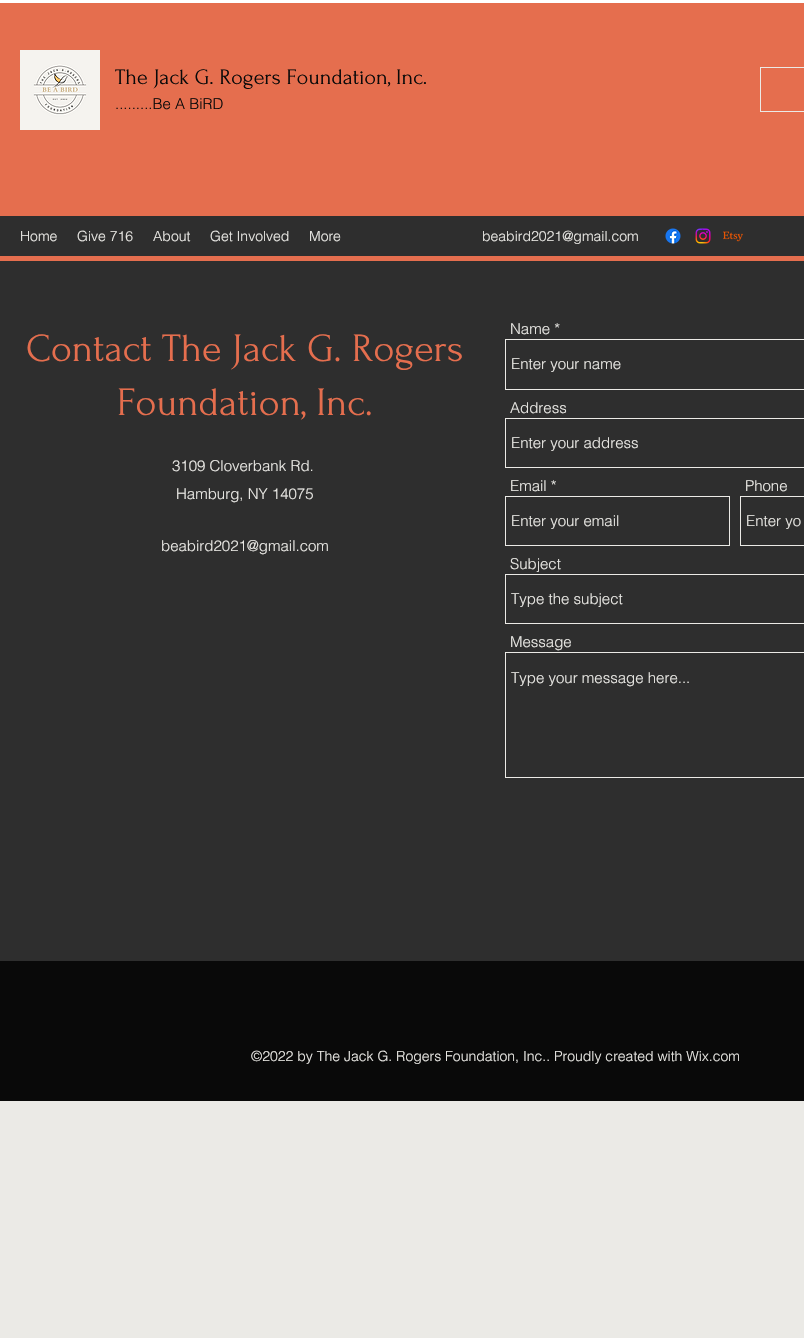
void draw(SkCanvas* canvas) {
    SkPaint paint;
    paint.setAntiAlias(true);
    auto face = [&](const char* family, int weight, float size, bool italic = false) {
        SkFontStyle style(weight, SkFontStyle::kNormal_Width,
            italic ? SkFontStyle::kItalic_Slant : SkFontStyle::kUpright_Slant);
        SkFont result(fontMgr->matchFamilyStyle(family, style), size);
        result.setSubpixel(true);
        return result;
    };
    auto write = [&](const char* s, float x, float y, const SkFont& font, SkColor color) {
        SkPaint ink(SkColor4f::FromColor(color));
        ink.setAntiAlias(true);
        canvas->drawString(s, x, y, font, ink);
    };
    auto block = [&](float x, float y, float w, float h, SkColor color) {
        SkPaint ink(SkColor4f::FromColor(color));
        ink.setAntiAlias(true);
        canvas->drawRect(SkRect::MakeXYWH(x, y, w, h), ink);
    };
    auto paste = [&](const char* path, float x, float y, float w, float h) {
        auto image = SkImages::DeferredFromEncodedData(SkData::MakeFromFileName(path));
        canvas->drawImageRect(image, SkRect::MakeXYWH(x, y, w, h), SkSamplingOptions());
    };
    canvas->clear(SK_ColorWHITE);
    block(0, 3, 804, 258, SkColorSetRGB(229, 110, 78));
    paste("pic1.png", 20, 50, 80, 80);
    auto kFont1 = face("Forum", 400, 22);
    write("The Jack G. Rogers Foundation, Inc.", 115, 84, kFont1, SkColorSetRGB(9, 9, 9));
    auto kFont2 = face("helvetica", 300, 15);
    write(".........Be A BiRD", 115, 109, kFont2, SkColorSetRGB(9, 9, 9));
    paint.setStyle(SkPaint::kStroke_Style);
    paint.setStrokeWidth(1);
    paint.setColor(SkColorSetRGB(235, 234, 230));
    canvas->drawRect(SkRect::MakeXYWH(760.5f, 67.5f, 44, 44), paint);
    block(0, 216, 804, 40, SkColorSetRGB(46, 46, 46));
    auto kFont3 = face("helvetica", 300, 14);
    write("Home", 20, 241, kFont3, SkColorSetRGB(235, 234, 230));
    write("Give 716", 77, 241, kFont3, SkColorSetRGB(235, 234, 230));
    write("About", 153, 241, kFont3, SkColorSetRGB(235, 234, 230));
    write("Get Involved", 210, 241, kFont3, SkColorSetRGB(235, 234, 230));
    write("More", 309, 241, kFont3, SkColorSetRGB(235, 234, 230));
    write("beabird2021@gmail.com", 482, 241, kFont3, SkColorSetRGB(235, 234, 230));
    paste("pic2.png", 665, 228, 16, 16);
    paste("pic3.png", 695, 228, 16, 16);
    paste("pic4.png", 723, 231, 20, 11);
    block(0, 261, 804, 700, SkColorSetRGB(46, 46, 46));
    auto kFont4 = face("Forum", 400, 40);
    write("Contact The Jack G. Rogers", 26, 361, kFont4, SkColorSetRGB(229, 110, 78));
    write("Foundation, Inc.", 117, 415, kFont4, SkColorSetRGB(229, 110, 78));
    write("3109 Cloverbank Rd.", 172, 471, kFont2, SkColorSetRGB(235, 234, 230));
    write("Hamburg, NY 14075", 176, 499, kFont2, SkColorSetRGB(235, 234, 230));
    write("beabird2021@gmail.com", 161, 551, kFont2, SkColorSetRGB(235, 234, 230));
    write("Name *", 510, 334, kFont2, SkColorSetRGB(235, 234, 230));
    canvas->drawRect(SkRect::MakeXYWH(505.5f, 339.5f, 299, 50), paint);
    write("Enter your name", 511, 369, kFont2, SkColorSetRGB(235, 234, 230));
    write("Address", 510, 413, kFont2, SkColorSetRGB(235, 234, 230));
    canvas->drawRect(SkRect::MakeXYWH(505.5f, 418.5f, 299, 49), paint);
    write("Enter your address", 511, 448, kFont2, SkColorSetRGB(235, 234, 230));
    write("Email *", 510, 491, kFont2, SkColorSetRGB(235, 234, 230));
    canvas->drawRect(SkRect::MakeXYWH(505.5f, 496.5f, 224, 49), paint);
    write("Enter your email", 511, 526, kFont2, SkColorSetRGB(235, 234, 230));
    write("Phone", 745, 491, kFont2, SkColorSetRGB(235, 234, 230));
    canvas->drawRect(SkRect::MakeXYWH(740.5f, 496.5f, 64, 49), paint);
    write("Enter yo", 746, 526, kFont2, SkColorSetRGB(235, 234, 230));
    write("Subject", 510, 569, kFont2, SkColorSetRGB(235, 234, 230));
    canvas->drawRect(SkRect::MakeXYWH(505.5f, 574.5f, 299, 49), paint);
    write("Type the subject", 511, 604, kFont2, SkColorSetRGB(235, 234, 230));
    write("Message", 510, 647, kFont2, SkColorSetRGB(235, 234, 230));
    canvas->drawRect(SkRect::MakeXYWH(505.5f, 652.5f, 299, 125), paint);
    write("Type your message here...", 511, 683, kFont2, SkColorSetRGB(235, 234, 230));
    block(0, 961, 804, 140, SkColorSetRGB(9, 9, 9));
    write("©2022 by The Jack G. Rogers Foundation, Inc.. Proudly created with Wix.com", 251, 1061, kFont3, SkColorSetRGB(235, 234, 230));
    block(0, 1101, 804, 237, SkColorSetRGB(235, 234, 230));
}
